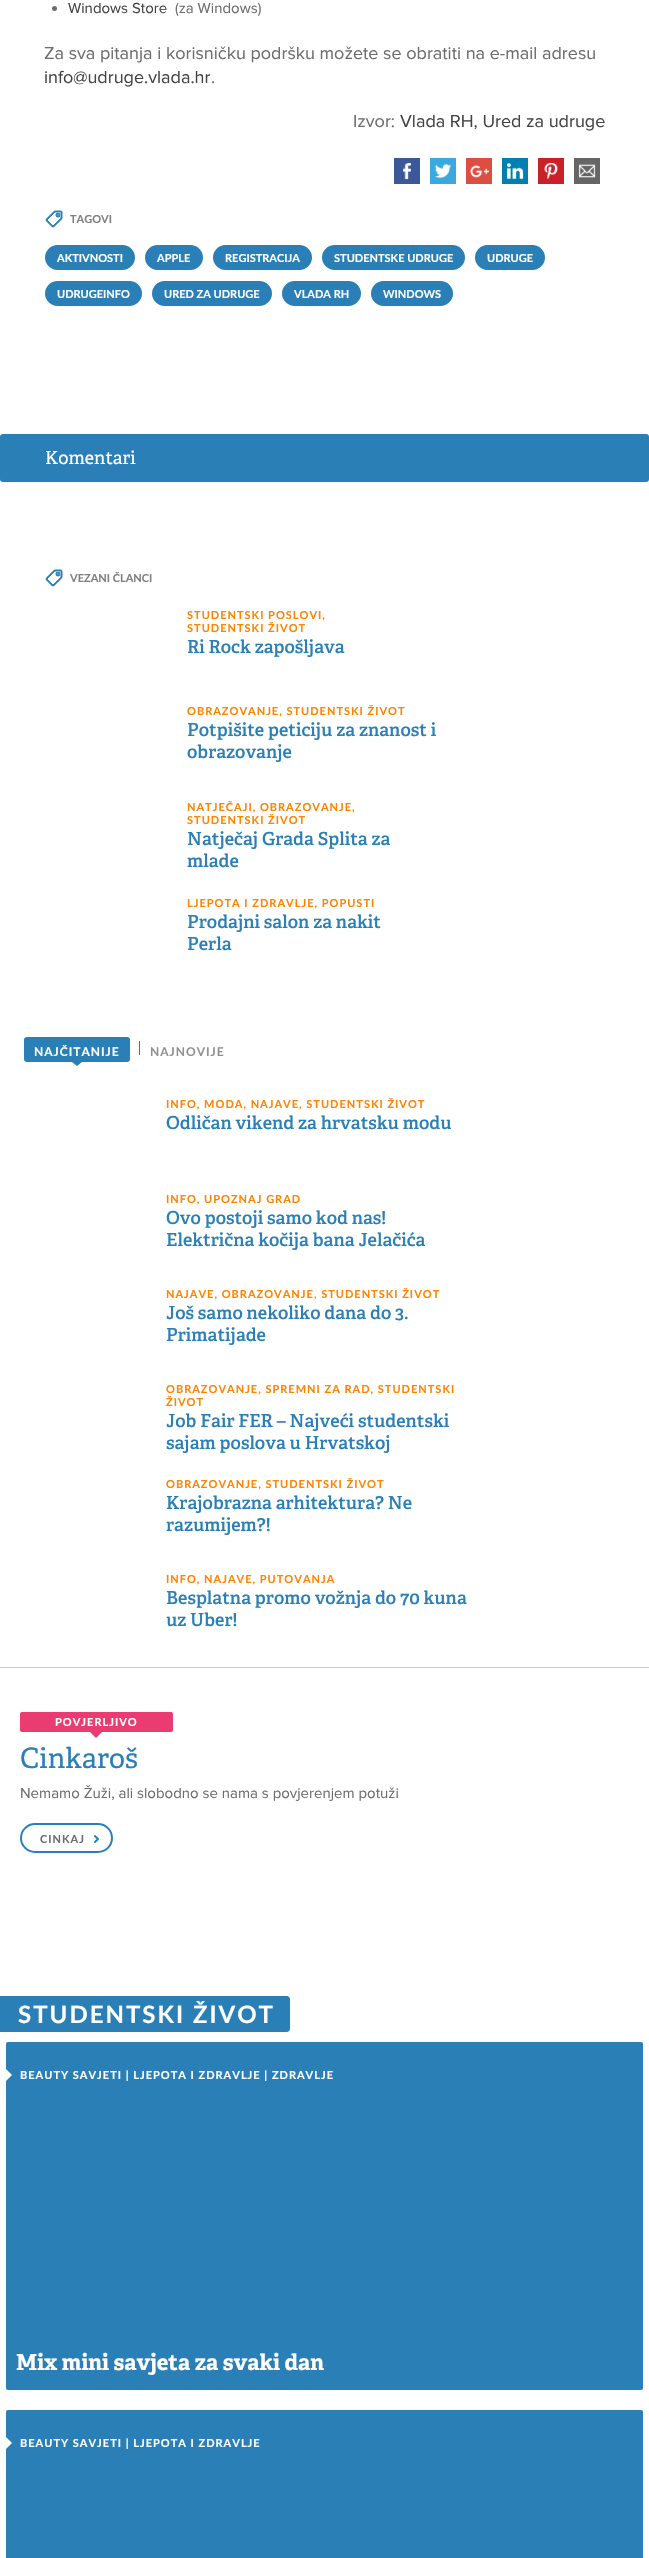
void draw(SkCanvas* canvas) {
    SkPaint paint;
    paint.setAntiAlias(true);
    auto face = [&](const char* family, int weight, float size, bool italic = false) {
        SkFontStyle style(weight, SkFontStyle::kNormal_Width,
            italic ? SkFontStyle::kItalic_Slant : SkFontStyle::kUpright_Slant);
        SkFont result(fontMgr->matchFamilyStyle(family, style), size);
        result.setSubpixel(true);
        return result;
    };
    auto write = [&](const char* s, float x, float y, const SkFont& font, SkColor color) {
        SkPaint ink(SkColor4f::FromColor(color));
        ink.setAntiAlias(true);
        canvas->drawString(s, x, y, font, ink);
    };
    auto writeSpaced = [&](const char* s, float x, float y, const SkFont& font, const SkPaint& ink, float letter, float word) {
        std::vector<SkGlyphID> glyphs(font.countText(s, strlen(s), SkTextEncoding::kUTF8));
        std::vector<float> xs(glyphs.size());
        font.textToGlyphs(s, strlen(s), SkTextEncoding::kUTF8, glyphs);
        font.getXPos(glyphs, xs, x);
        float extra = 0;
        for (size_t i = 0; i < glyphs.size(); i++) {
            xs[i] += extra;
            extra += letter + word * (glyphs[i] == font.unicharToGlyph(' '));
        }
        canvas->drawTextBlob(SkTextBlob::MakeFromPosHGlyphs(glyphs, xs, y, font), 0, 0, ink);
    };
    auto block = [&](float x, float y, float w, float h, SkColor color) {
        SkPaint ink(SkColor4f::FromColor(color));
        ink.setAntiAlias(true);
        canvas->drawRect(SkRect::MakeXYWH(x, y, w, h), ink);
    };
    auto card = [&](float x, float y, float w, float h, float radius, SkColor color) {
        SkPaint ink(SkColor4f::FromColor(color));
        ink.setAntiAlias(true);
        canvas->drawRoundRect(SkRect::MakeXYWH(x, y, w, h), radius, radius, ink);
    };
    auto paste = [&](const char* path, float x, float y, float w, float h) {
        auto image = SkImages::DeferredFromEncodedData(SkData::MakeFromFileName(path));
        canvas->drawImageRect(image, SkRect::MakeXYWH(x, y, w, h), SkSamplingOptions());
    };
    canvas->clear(SK_ColorWHITE);
    paint.setColor(SkColorSetRGB(109, 109, 109));
    canvas->drawCircle(54.5f, 8.5f, 2.5f, paint);
    auto kFont1 = face("Proxima Nova", 400, 15);
    write("Windows Store", 68, 13, kFont1, SkColorSetRGB(68, 68, 68));
    write("(za Windows)", 175, 13, kFont1, SkColorSetRGB(109, 109, 109));
    auto kFont2 = face("Proxima Nova", 400, 18);
    write("Za sva pitanja i korisničku podršku možete se obratiti na e-mail adresu", 44, 59, kFont2, SkColorSetRGB(109, 109, 109));
    write("info@udruge.vlada.hr", 44, 83, kFont2, SkColorSetRGB(68, 68, 68));
    write(".", 211, 83, kFont2, SkColorSetRGB(109, 109, 109));
    write("Izvor:", 353, 127, kFont2, SkColorSetRGB(109, 109, 109));
    write("Vlada RH, Ured za udruge", 400, 127, kFont2, SkColorSetRGB(68, 68, 68));
    paste("pic1.png", 394, 158, 26, 26);
    paste("pic2.png", 430, 158, 26, 26);
    paste("pic3.png", 466, 158, 26, 26);
    paste("pic4.png", 502, 158, 26, 26);
    paste("pic5.png", 538, 158, 26, 26);
    paste("pic6.png", 574, 158, 26, 26);
    paste("pic7.png", 45, 210, 18, 18);
    auto kFont3 = face("Lato", 700, 11);
    write("TAGOVI", 70, 223, kFont3, SkColorSetRGB(128, 128, 128));
    paint.setColor(SkColorSetRGB(41, 127, 182));
    canvas->drawRoundRect(SkRect::MakeXYWH(46, 246, 88, 23), 11.5f, 11.5f, paint);
    paint.setStyle(SkPaint::kStroke_Style);
    paint.setStrokeWidth(2);
    canvas->drawRoundRect(SkRect::MakeXYWH(46, 246, 88, 23), 11.5f, 11.5f, paint);
    write("AKTIVNOSTI", 57, 262, kFont3, SK_ColorWHITE);
    paint.setStyle(SkPaint::kFill_Style);
    canvas->drawRoundRect(SkRect::MakeXYWH(146, 246, 56, 23), 11.5f, 11.5f, paint);
    paint.setStyle(SkPaint::kStroke_Style);
    canvas->drawRoundRect(SkRect::MakeXYWH(146, 246, 56, 23), 11.5f, 11.5f, paint);
    write("APPLE", 157, 262, kFont3, SK_ColorWHITE);
    paint.setStyle(SkPaint::kFill_Style);
    canvas->drawRoundRect(SkRect::MakeXYWH(214, 246, 97, 23), 11.5f, 11.5f, paint);
    paint.setStyle(SkPaint::kStroke_Style);
    canvas->drawRoundRect(SkRect::MakeXYWH(214, 246, 97, 23), 11.5f, 11.5f, paint);
    write("REGISTRACIJA", 225, 262, kFont3, SK_ColorWHITE);
    paint.setStyle(SkPaint::kFill_Style);
    canvas->drawRoundRect(SkRect::MakeXYWH(323, 246, 141, 23), 11.5f, 11.5f, paint);
    paint.setStyle(SkPaint::kStroke_Style);
    canvas->drawRoundRect(SkRect::MakeXYWH(323, 246, 141, 23), 11.5f, 11.5f, paint);
    write("STUDENTSKE UDRUGE", 334, 262, kFont3, SK_ColorWHITE);
    paint.setStyle(SkPaint::kFill_Style);
    canvas->drawRoundRect(SkRect::MakeXYWH(476, 246, 68, 23), 11.5f, 11.5f, paint);
    paint.setStyle(SkPaint::kStroke_Style);
    canvas->drawRoundRect(SkRect::MakeXYWH(476, 246, 68, 23), 11.5f, 11.5f, paint);
    write("UDRUGE", 487, 262, kFont3, SK_ColorWHITE);
    paint.setStyle(SkPaint::kFill_Style);
    canvas->drawRoundRect(SkRect::MakeXYWH(46, 282, 95, 23), 11.5f, 11.5f, paint);
    paint.setStyle(SkPaint::kStroke_Style);
    canvas->drawRoundRect(SkRect::MakeXYWH(46, 282, 95, 23), 11.5f, 11.5f, paint);
    write("UDRUGEINFO", 57, 298, kFont3, SK_ColorWHITE);
    paint.setStyle(SkPaint::kFill_Style);
    canvas->drawRoundRect(SkRect::MakeXYWH(153, 282, 118, 23), 11.5f, 11.5f, paint);
    paint.setStyle(SkPaint::kStroke_Style);
    canvas->drawRoundRect(SkRect::MakeXYWH(153, 282, 118, 23), 11.5f, 11.5f, paint);
    write("URED ZA UDRUGE", 164, 298, kFont3, SK_ColorWHITE);
    paint.setStyle(SkPaint::kFill_Style);
    canvas->drawRoundRect(SkRect::MakeXYWH(283, 282, 77, 23), 11.5f, 11.5f, paint);
    paint.setStyle(SkPaint::kStroke_Style);
    canvas->drawRoundRect(SkRect::MakeXYWH(283, 282, 77, 23), 11.5f, 11.5f, paint);
    write("VLADA RH", 294, 298, kFont3, SK_ColorWHITE);
    paint.setStyle(SkPaint::kFill_Style);
    canvas->drawRoundRect(SkRect::MakeXYWH(372, 282, 80, 23), 11.5f, 11.5f, paint);
    paint.setStyle(SkPaint::kStroke_Style);
    canvas->drawRoundRect(SkRect::MakeXYWH(372, 282, 80, 23), 11.5f, 11.5f, paint);
    write("WINDOWS", 383, 298, kFont3, SK_ColorWHITE);
    card(0, 434, 649, 48, 3, SkColorSetRGB(41, 127, 182));
    auto kFont4 = face("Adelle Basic", 400, 18);
    write("Komentari", 45, 464, kFont4, SK_ColorWHITE);
    paste("pic7.png", 45, 569, 18, 18);
    write("VEZANI ČLANCI", 70, 582, kFont3, SkColorSetRGB(128, 128, 128));
    paint.setStyle(SkPaint::kFill_Style);
    paint.setColor(SkColorSetRGB(255, 132, 0));
    writeSpaced("STUDENTSKI POSLOVI,", 187, 619, kFont3, paint, 1, 0);
    writeSpaced("STUDENTSKI ŽIVOT", 187, 632, kFont3, paint, 1, 0);
    auto kFont5 = face("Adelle", 600, 18);
    write("Ri Rock zapošljava", 187, 653, kFont5, SkColorSetRGB(41, 127, 182));
    writeSpaced("OBRAZOVANJE, STUDENTSKI ŽIVOT", 187, 715, kFont3, paint, 1, 0);
    write("Potpišite peticiju za znanost i", 187, 736, kFont5, SkColorSetRGB(41, 127, 182));
    write("obrazovanje", 187, 758, kFont5, SkColorSetRGB(41, 127, 182));
    writeSpaced("NATJEČAJI, OBRAZOVANJE,", 187, 811, kFont3, paint, 1, 0);
    writeSpaced("STUDENTSKI ŽIVOT", 187, 824, kFont3, paint, 1, 0);
    write("Natječaj Grada Splita za", 187, 845, kFont5, SkColorSetRGB(41, 127, 182));
    write("mlade", 187, 867, kFont5, SkColorSetRGB(41, 127, 182));
    writeSpaced("LJEPOTA I ZDRAVLJE, POPUSTI", 187, 907, kFont3, paint, 1, 0);
    write("Prodajni salon za nakit", 187, 928, kFont5, SkColorSetRGB(41, 127, 182));
    write("Perla", 187, 950, kFont5, SkColorSetRGB(41, 127, 182));
    block(0, 1667, 649, 1, SkColorSetRGB(200, 200, 200));
    card(24, 1037, 106, 25, 3, SkColorSetRGB(41, 127, 182));
    auto kFont6 = face("Lato", 700, 12);
    paint.setColor(SK_ColorWHITE);
    writeSpaced("NAJČITANIJE", 34, 1056, kFont6, paint, 1, 0);
    block(139, 1041, 1, 14, SkColorSetRGB(41, 127, 182));
    paint.setColor(SkColorSetRGB(41, 127, 182));
    canvas->drawPath(SkPathBuilder().moveTo(72, 1062).lineTo(82, 1062).lineTo(77, 1066).close().detach(), paint);
    paint.setColor(SkColorSetRGB(145, 145, 145));
    writeSpaced("NAJNOVIJE", 150, 1056, kFont6, paint, 1, 0);
    paint.setColor(SkColorSetRGB(255, 132, 0));
    writeSpaced("INFO, MODA, NAJAVE, STUDENTSKI ŽIVOT", 166, 1108, kFont3, paint, 1, 0);
    write("Odličan vikend za hrvatsku modu", 166, 1129, kFont5, SkColorSetRGB(41, 127, 182));
    writeSpaced("INFO, UPOZNAJ GRAD", 166, 1203, kFont3, paint, 1, 0);
    write("Ovo postoji samo kod nas!", 166, 1224, kFont5, SkColorSetRGB(41, 127, 182));
    write("Električna kočija bana Jelačića", 166, 1246, kFont5, SkColorSetRGB(41, 127, 182));
    writeSpaced("NAJAVE, OBRAZOVANJE, STUDENTSKI ŽIVOT", 166, 1298, kFont3, paint, 1, 0);
    write("Još samo nekoliko dana do 3.", 166, 1319, kFont5, SkColorSetRGB(41, 127, 182));
    write("Primatijade", 166, 1341, kFont5, SkColorSetRGB(41, 127, 182));
    writeSpaced("OBRAZOVANJE, SPREMNI ZA RAD, STUDENTSKI", 166, 1393, kFont3, paint, 1, 0);
    writeSpaced("ŽIVOT", 166, 1406, kFont3, paint, 1, 0);
    write("Job Fair FER – Najveći studentski", 166, 1427, kFont5, SkColorSetRGB(41, 127, 182));
    write("sajam poslova u Hrvatskoj", 166, 1449, kFont5, SkColorSetRGB(41, 127, 182));
    writeSpaced("OBRAZOVANJE, STUDENTSKI ŽIVOT", 166, 1488, kFont3, paint, 1, 0);
    write("Krajobrazna arhitektura? Ne", 166, 1509, kFont5, SkColorSetRGB(41, 127, 182));
    write("razumijem?!", 166, 1531, kFont5, SkColorSetRGB(41, 127, 182));
    writeSpaced("INFO, NAJAVE, PUTOVANJA", 166, 1583, kFont3, paint, 1, 0);
    write("Besplatna promo vožnja do 70 kuna", 166, 1604, kFont5, SkColorSetRGB(41, 127, 182));
    write("uz Uber!", 166, 1626, kFont5, SkColorSetRGB(41, 127, 182));
    card(20, 1712, 153, 20, 2, SkColorSetRGB(235, 60, 114));
    paint.setColor(SK_ColorWHITE);
    writeSpaced("POVJERLJIVO", 55, 1726, kFont3, paint, 1, 0);
    paint.setColor(SkColorSetRGB(235, 60, 114));
    canvas->drawPath(SkPathBuilder().moveTo(90, 1732).lineTo(102, 1732).lineTo(96, 1738).close().detach(), paint);
    auto kFont7 = face("Adelle Basic", 400, 28);
    write("Cinkaroš", 20, 1768, kFont7, SkColorSetRGB(41, 127, 182));
    write("Nemamo Žuži, ali slobodno se nama s povjerenjem potuži", 20, 1798, kFont1, SkColorSetRGB(109, 109, 109));
    paint.setStyle(SkPaint::kStroke_Style);
    paint.setColor(SkColorSetRGB(41, 127, 182));
    canvas->drawRoundRect(SkRect::MakeXYWH(21, 1824, 91, 28), 14, 14, paint);
    paint.setStyle(SkPaint::kFill_Style);
    paint.setColor(SkColorSetRGB(109, 109, 109));
    writeSpaced("CINKAJ", 40, 1843, kFont3, paint, 1, 0);
    paste("pic8.png", 94, 1835, 5, 8);
    paint.setColor(SkColorSetRGB(41, 127, 182));
    canvas->drawPath(SkPathBuilder().moveTo(0, 1996).lineTo(287, 1996).cubicTo(288.5f, 1996, 290, 1997.5f, 290, 1999).lineTo(290, 2029).cubicTo(290, 2030.5f, 288.5f, 2032, 287, 2032).lineTo(0, 2032).close().detach(), paint);
    auto kFont8 = face("Lato", 700, 24);
    paint.setColor(SK_ColorWHITE);
    writeSpaced("STUDENTSKI ŽIVOT", 18, 2023, kFont8, paint, 2, 0);
    card(6, 2042, 637, 348, 2, SkColorSetRGB(41, 127, 182));
    canvas->drawPath(SkPathBuilder().moveTo(6, 2081).lineTo(6, 2069).lineTo(12, 2075).close().detach(), paint);
    writeSpaced("BEAUTY SAVJETI | LJEPOTA I ZDRAVLJE | ZDRAVLJE", 20, 2079, kFont3, paint, 1, 0);
    auto kFont9 = face("Adelle Basic", 700, 22);
    write("Mix mini savjeta za svaki dan", 16, 2370, kFont9, SK_ColorWHITE);
    card(6, 2410, 637, 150, 2, SkColorSetRGB(41, 127, 182));
    canvas->drawPath(SkPathBuilder().moveTo(6, 2449).lineTo(6, 2437).lineTo(12, 2443).close().detach(), paint);
    writeSpaced("BEAUTY SAVJETI | LJEPOTA I ZDRAVLJE", 20, 2447, kFont3, paint, 1, 0);
}
